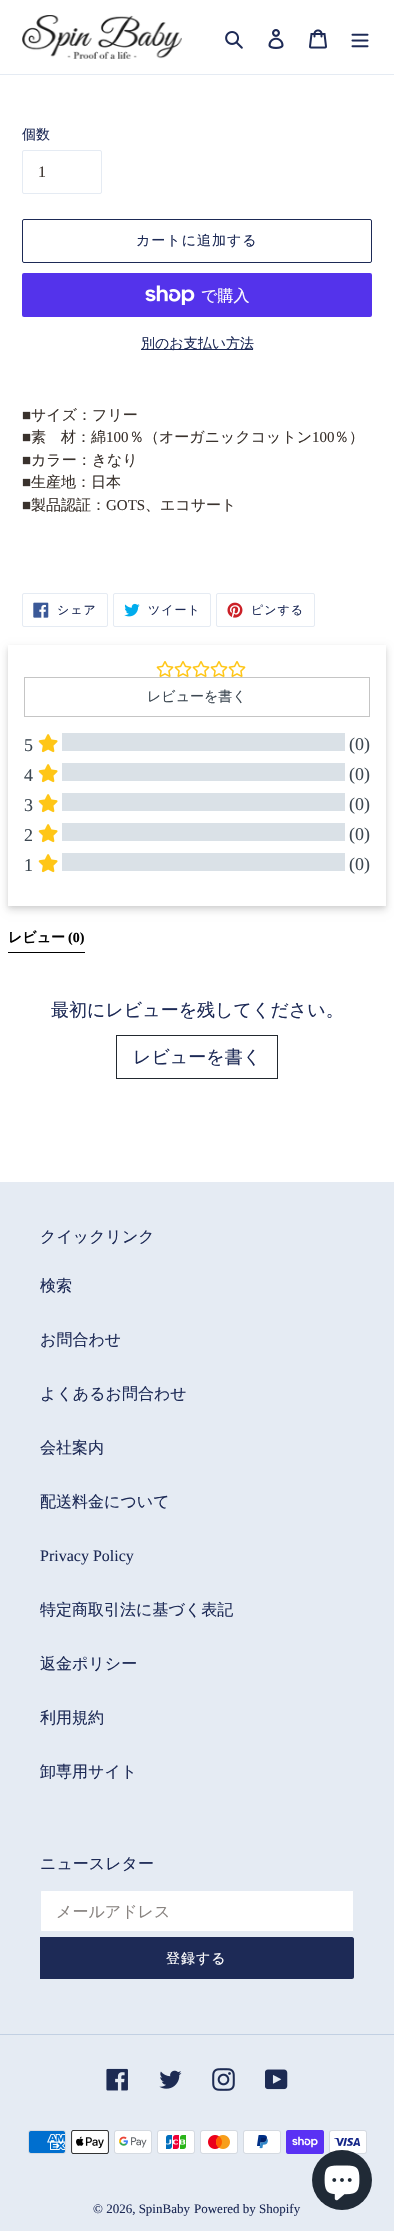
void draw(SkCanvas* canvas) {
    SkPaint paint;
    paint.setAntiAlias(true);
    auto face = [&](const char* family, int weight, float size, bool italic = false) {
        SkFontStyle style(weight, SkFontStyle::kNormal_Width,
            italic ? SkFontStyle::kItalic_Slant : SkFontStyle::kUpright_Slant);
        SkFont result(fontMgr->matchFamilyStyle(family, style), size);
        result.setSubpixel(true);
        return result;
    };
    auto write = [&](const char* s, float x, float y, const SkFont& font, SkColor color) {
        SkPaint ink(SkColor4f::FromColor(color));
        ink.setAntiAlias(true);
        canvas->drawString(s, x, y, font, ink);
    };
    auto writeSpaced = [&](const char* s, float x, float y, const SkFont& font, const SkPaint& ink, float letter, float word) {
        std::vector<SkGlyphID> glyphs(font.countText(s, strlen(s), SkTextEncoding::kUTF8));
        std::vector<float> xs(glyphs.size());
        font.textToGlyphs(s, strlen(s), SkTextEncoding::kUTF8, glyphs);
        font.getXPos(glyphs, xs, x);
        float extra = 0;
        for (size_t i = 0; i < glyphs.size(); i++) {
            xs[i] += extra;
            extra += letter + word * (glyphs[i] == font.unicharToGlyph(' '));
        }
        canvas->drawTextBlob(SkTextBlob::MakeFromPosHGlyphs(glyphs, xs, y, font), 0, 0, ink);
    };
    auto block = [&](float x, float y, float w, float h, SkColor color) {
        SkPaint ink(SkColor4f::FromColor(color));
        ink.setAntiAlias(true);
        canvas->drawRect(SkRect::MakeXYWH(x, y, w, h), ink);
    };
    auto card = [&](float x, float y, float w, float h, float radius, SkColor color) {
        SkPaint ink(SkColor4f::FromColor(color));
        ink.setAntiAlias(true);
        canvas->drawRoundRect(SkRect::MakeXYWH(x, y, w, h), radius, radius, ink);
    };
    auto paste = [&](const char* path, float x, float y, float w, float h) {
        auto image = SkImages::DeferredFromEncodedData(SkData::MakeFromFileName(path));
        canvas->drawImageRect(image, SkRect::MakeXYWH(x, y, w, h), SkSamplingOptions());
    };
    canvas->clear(SK_ColorWHITE);
    block(0, 74, 394, 1, SkColorSetRGB(229, 235, 243));
    paste("pic1.png", 22, 15, 160, 44);
    paste("pic2.png", 225, 31, 18, 18);
    paste("pic3.png", 268, 29, 16, 20);
    paste("pic4.png", 309, 29, 18, 20);
    paste("pic5.png", 351, 33, 18, 15);
    auto kFont1 = face("WenQuanYi Zen Hei", 500, 14);
    write("個数", 22, 139, kFont1, SkColorSetRGB(29, 42, 86));
    paint.setStyle(SkPaint::kStroke_Style);
    paint.setStrokeWidth(1);
    paint.setColor(SkColorSetRGB(229, 235, 243));
    canvas->drawRoundRect(SkRect::MakeXYWH(22.5f, 150.5f, 79, 43), 1.5f, 1.5f, paint);
    auto kFont2 = face("Liberation Serif", 400, 16);
    write("1", 38, 177, kFont2, SkColorSetRGB(58, 50, 45));
    paint.setColor(SkColorSetRGB(29, 42, 86));
    canvas->drawRoundRect(SkRect::MakeXYWH(22.5f, 219.5f, 349, 43), 1.5f, 1.5f, paint);
    paint.setStyle(SkPaint::kFill_Style);
    writeSpaced("カートに追加する", 136, 245, kFont1, paint, 1, 0);
    card(22, 273, 350, 44, 2, SkColorSetRGB(84, 51, 235));
    paste("pic6.png", 145, 285, 50, 20);
    auto kFont3 = face("WenQuanYi Zen Hei", 500, 16);
    write("で購入", 201, 301, kFont3, SK_ColorWHITE);
    block(141, 349, 112, 1, SkColorSetRGB(29, 42, 86));
    write("別のお支払い方法", 141, 348, kFont1, SkColorSetRGB(29, 42, 86));
    auto kFont4 = face("Liberation Serif", 400, 15);
    write("■", 22, 420, kFont4, SkColorSetRGB(58, 50, 45));
    auto kFont5 = face("WenQuanYi Zen Hei", 500, 15);
    write("サイズ：フリー", 31, 420, kFont5, SkColorSetRGB(58, 50, 45));
    write("■", 22, 442, kFont4, SkColorSetRGB(58, 50, 45));
    write("素　材：綿", 31, 442, kFont5, SkColorSetRGB(58, 50, 45));
    write("100", 106, 442, kFont4, SkColorSetRGB(58, 50, 45));
    write("％（オーガニックコットン", 129, 442, kFont5, SkColorSetRGB(58, 50, 45));
    write("100", 312, 442, kFont4, SkColorSetRGB(58, 50, 45));
    write("％）", 334, 442, kFont5, SkColorSetRGB(58, 50, 45));
    write("■", 22, 465, kFont4, SkColorSetRGB(58, 50, 45));
    write("カラー：きなり", 31, 465, kFont5, SkColorSetRGB(58, 50, 45));
    write("■", 22, 487, kFont4, SkColorSetRGB(58, 50, 45));
    write("生産地：日本", 31, 487, kFont5, SkColorSetRGB(58, 50, 45));
    write("■", 22, 510, kFont4, SkColorSetRGB(58, 50, 45));
    write("製品認証：", 31, 510, kFont5, SkColorSetRGB(58, 50, 45));
    write("GOTS", 106, 510, kFont4, SkColorSetRGB(58, 50, 45));
    write("、エコサート", 145, 510, kFont5, SkColorSetRGB(58, 50, 45));
    paint.setStyle(SkPaint::kStroke_Style);
    paint.setColor(SkColorSetRGB(229, 235, 243));
    canvas->drawRoundRect(SkRect::MakeXYWH(22.5f, 593.5f, 85, 33), 1.5f, 1.5f, paint);
    paste("pic7.png", 33, 602, 16, 16);
    auto kFont6 = face("WenQuanYi Zen Hei", 500, 12);
    paint.setStyle(SkPaint::kFill_Style);
    paint.setColor(SkColorSetRGB(29, 42, 86));
    writeSpaced("シェア", 57, 614, kFont6, paint, 1, 0);
    paint.setStyle(SkPaint::kStroke_Style);
    paint.setColor(SkColorSetRGB(229, 235, 243));
    canvas->drawRoundRect(SkRect::MakeXYWH(113.5f, 593.5f, 97, 33), 1.5f, 1.5f, paint);
    paste("pic8.png", 124, 603, 16, 14);
    paint.setStyle(SkPaint::kFill_Style);
    paint.setColor(SkColorSetRGB(29, 42, 86));
    writeSpaced("ツイート", 148, 614, kFont6, paint, 1, 0);
    paint.setStyle(SkPaint::kStroke_Style);
    paint.setColor(SkColorSetRGB(229, 235, 243));
    canvas->drawRoundRect(SkRect::MakeXYWH(216.5f, 593.5f, 98, 33), 1.5f, 1.5f, paint);
    paste("pic9.png", 227, 602, 16, 16);
    paint.setStyle(SkPaint::kFill_Style);
    paint.setColor(SkColorSetRGB(29, 42, 86));
    writeSpaced("ピンする", 251, 614, kFont6, paint, 1, 0);
    canvas->save();
    canvas->clipPath(SkPathBuilder(SkPathFillType::kEvenOdd).moveTo(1, 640).lineTo(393, 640).lineTo(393, 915).lineTo(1, 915).close().moveTo(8, 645).lineTo(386, 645).lineTo(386, 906).lineTo(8, 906).close().detach(), true);
    paint.setColor(SkColorSetARGB(20, 0, 0, 0));
    paint.setMaskFilter(SkMaskFilter::MakeBlur(kNormal_SkBlurStyle, 2));
    canvas->drawRect(SkRect::MakeXYWH(8, 647, 378, 261), paint);
    paint.setMaskFilter(nullptr);
    canvas->restore();
    canvas->save();
    canvas->clipPath(SkPathBuilder(SkPathFillType::kEvenOdd).moveTo(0, 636).lineTo(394, 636).lineTo(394, 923).lineTo(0, 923).close().moveTo(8, 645).lineTo(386, 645).lineTo(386, 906).lineTo(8, 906).close().detach(), true);
    paint.setColor(SkColorSetARGB(31, 0, 0, 0));
    paint.setMaskFilter(SkMaskFilter::MakeBlur(kNormal_SkBlurStyle, 4));
    canvas->drawRect(SkRect::MakeXYWH(8, 649, 378, 261), paint);
    paint.setMaskFilter(nullptr);
    canvas->restore();
    paste("pic10.png", 156, 661, 18, 16);
    paste("pic10.png", 174, 661, 18, 16);
    paste("pic10.png", 192, 661, 18, 16);
    paste("pic10.png", 210, 661, 18, 16);
    paste("pic10.png", 228, 661, 18, 16);
    paint.setStyle(SkPaint::kStroke_Style);
    paint.setColor(SkColorSetRGB(197, 197, 197));
    canvas->drawRect(SkRect::MakeXYWH(24.5f, 677.5f, 345, 39), paint);
    write("レビューを書く", 147, 701, kFont1, SkColorSetRGB(61, 72, 82));
    auto kFont7 = face("Liberation Serif", 400, 18);
    write("5", 24, 751, kFont7, SkColorSetRGB(61, 72, 82));
    paste("pic11.png", 38, 734, 20, 19);
    block(62, 733, 283, 18, SkColorSetRGB(218, 225, 231));
    write("(0)", 349, 750, kFont7, SkColorSetRGB(61, 72, 82));
    write("4", 24, 781, kFont7, SkColorSetRGB(61, 72, 82));
    paste("pic11.png", 38, 764, 20, 19);
    block(62, 763, 283, 18, SkColorSetRGB(218, 225, 231));
    write("(0)", 349, 780, kFont7, SkColorSetRGB(61, 72, 82));
    write("3", 24, 811, kFont7, SkColorSetRGB(61, 72, 82));
    paste("pic11.png", 38, 794, 20, 19);
    block(62, 793, 283, 18, SkColorSetRGB(218, 225, 231));
    write("(0)", 349, 810, kFont7, SkColorSetRGB(61, 72, 82));
    write("2", 24, 841, kFont7, SkColorSetRGB(61, 72, 82));
    paste("pic11.png", 38, 824, 20, 19);
    block(62, 823, 283, 18, SkColorSetRGB(218, 225, 231));
    write("(0)", 349, 840, kFont7, SkColorSetRGB(61, 72, 82));
    write("1", 24, 871, kFont7, SkColorSetRGB(61, 72, 82));
    paste("pic11.png", 38, 854, 20, 19);
    block(62, 853, 283, 18, SkColorSetRGB(218, 225, 231));
    write("(0)", 349, 870, kFont7, SkColorSetRGB(61, 72, 82));
    block(8, 952, 77, 1, SK_ColorBLACK);
    auto kFont8 = face("WenQuanYi Zen Hei", 700, 14);
    write("レビュー", 8, 942, kFont8, SK_ColorBLACK);
    auto kFont9 = face("Liberation Serif", 700, 14);
    write("(0)", 68, 942, kFont9, SK_ColorBLACK);
    auto kFont10 = face("WenQuanYi Zen Hei", 500, 18);
    write("最初にレビューを残してください。", 51, 1016, kFont10, SkColorSetRGB(29, 42, 86));
    paint.setColor(SkColorSetRGB(34, 41, 47));
    canvas->drawRect(SkRect::MakeXYWH(116.5f, 1035.5f, 161, 43), paint);
    write("レビューを書く", 133, 1063, kFont10, SkColorSetRGB(29, 42, 86));
    block(0, 1182, 394, 1049, SkColorSetRGB(229, 235, 243));
    write("クイックリンク", 40, 1242, kFont3, SkColorSetRGB(29, 42, 86));
    write("検索", 40, 1291, kFont3, SkColorSetRGB(29, 42, 86));
    write("お問合わせ", 40, 1345, kFont3, SkColorSetRGB(29, 42, 86));
    write("よくあるお問合わせ", 40, 1399, kFont3, SkColorSetRGB(29, 42, 86));
    write("会社案内", 40, 1453, kFont3, SkColorSetRGB(29, 42, 86));
    write("配送料金について", 40, 1507, kFont3, SkColorSetRGB(29, 42, 86));
    write("Privacy Policy", 40, 1561, kFont2, SkColorSetRGB(29, 42, 86));
    write("特定商取引法に基づく表記", 40, 1615, kFont3, SkColorSetRGB(29, 42, 86));
    write("返金ポリシー", 40, 1669, kFont3, SkColorSetRGB(29, 42, 86));
    write("利用規約", 40, 1723, kFont3, SkColorSetRGB(29, 42, 86));
    write("卸専用サイト", 40, 1777, kFont3, SkColorSetRGB(29, 42, 86));
    write("ニュースレター", 40, 1869, kFont3, SkColorSetRGB(29, 42, 86));
    paint.setStyle(SkPaint::kFill_Style);
    paint.setColor(SK_ColorWHITE);
    canvas->drawPath(SkPathBuilder().moveTo(42, 1890.5f).lineTo(353.5f, 1890.5f).lineTo(353.5f, 1931.5f).lineTo(42, 1931.5f).cubicTo(41, 1931.5f, 40.5f, 1931, 40.5f, 1930).lineTo(40.5f, 1892).cubicTo(40.5f, 1891, 41, 1890.5f, 42, 1890.5f).close().detach(), paint);
    paint.setStyle(SkPaint::kStroke_Style);
    paint.setColor(SkColorSetRGB(229, 235, 243));
    canvas->drawPath(SkPathBuilder().moveTo(42, 1890.5f).lineTo(353.5f, 1890.5f).lineTo(353.5f, 1931.5f).lineTo(42, 1931.5f).cubicTo(41, 1931.5f, 40.5f, 1931, 40.5f, 1930).lineTo(40.5f, 1892).cubicTo(40.5f, 1891, 41, 1890.5f, 42, 1890.5f).close().detach(), paint);
    write("メールアドレス", 56, 1917, kFont3, SkColorSetRGB(137, 132, 129));
    paint.setStyle(SkPaint::kFill_Style);
    paint.setColor(SkColorSetRGB(29, 42, 86));
    canvas->drawPath(SkPathBuilder().moveTo(40, 1937).lineTo(352, 1937).cubicTo(353, 1937, 354, 1938, 354, 1939).lineTo(354, 1977).cubicTo(354, 1978, 353, 1979, 352, 1979).lineTo(40, 1979).close().detach(), paint);
    paint.setColor(SK_ColorWHITE);
    writeSpaced("登録する", 166, 1963, kFont1, paint, 1, 0);
    block(0, 2034, 394, 1, SkColorSetRGB(194, 208, 227));
    paste("pic12.png", 106, 2068, 22, 23);
    paste("pic13.png", 159, 2070, 23, 19);
    paste("pic14.png", 212, 2068, 23, 23);
    paste("pic15.png", 265, 2069, 23, 21);
    paste("pic16.png", 28, 2130, 38, 24);
    paste("pic17.png", 71, 2130, 38, 24);
    paste("pic18.png", 114, 2130, 38, 24);
    paste("pic19.png", 157, 2130, 38, 24);
    paste("pic20.png", 200, 2130, 38, 24);
    paste("pic21.png", 243, 2130, 38, 24);
    paste("pic22.png", 286, 2130, 38, 24);
    paste("pic23.png", 329, 2130, 38, 24);
    auto kFont11 = face("Liberation Serif", 400, 13);
    write("© 2026, SpinBaby", 93, 2213, kFont11, SkColorSetRGB(29, 42, 86));
    write("Powered by Shopify", 194, 2213, kFont11, SkColorSetRGB(29, 42, 86));
    paint.setColor(SkColorSetRGB(32, 42, 54));
    canvas->drawCircle(342, 2180, 30, paint);
    paste("pic24.png", 324, 2165, 36, 36);
}
